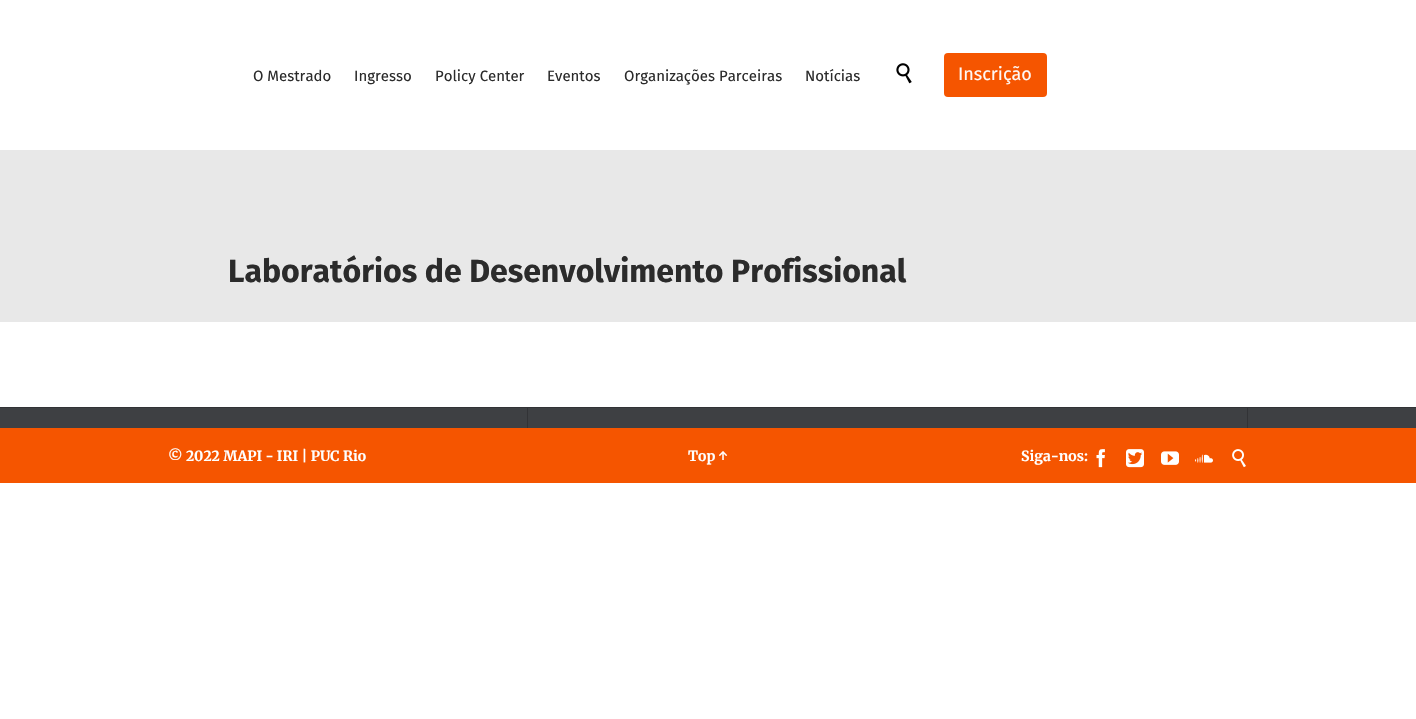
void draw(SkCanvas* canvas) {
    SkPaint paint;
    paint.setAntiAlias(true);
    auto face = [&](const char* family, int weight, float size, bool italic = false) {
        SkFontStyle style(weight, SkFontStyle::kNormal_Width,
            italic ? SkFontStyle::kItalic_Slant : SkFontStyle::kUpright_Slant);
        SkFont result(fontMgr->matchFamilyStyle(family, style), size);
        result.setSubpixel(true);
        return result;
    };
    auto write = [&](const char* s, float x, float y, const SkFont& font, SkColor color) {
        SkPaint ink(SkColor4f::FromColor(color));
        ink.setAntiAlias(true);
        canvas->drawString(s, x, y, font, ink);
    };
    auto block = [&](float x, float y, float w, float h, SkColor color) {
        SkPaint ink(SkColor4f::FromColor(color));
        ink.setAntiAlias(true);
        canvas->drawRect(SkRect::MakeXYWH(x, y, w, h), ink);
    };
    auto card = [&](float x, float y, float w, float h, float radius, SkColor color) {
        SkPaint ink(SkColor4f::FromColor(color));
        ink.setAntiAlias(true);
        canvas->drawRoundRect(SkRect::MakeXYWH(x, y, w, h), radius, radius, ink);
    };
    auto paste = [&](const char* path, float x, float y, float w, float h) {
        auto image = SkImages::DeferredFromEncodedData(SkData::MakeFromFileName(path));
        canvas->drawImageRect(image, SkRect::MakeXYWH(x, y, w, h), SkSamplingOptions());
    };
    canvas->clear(SK_ColorWHITE);
    auto kFont1 = face("Fira Sans", 400, 15);
    write("O Mestrado", 253, 81, kFont1, SkColorSetRGB(43, 43, 43));
    write("Ingresso", 354, 81, kFont1, SkColorSetRGB(43, 43, 43));
    write("Policy Center", 435, 81, kFont1, SkColorSetRGB(43, 43, 43));
    write("Eventos", 547, 81, kFont1, SkColorSetRGB(43, 43, 43));
    write("Organizações Parceiras", 624, 81, kFont1, SkColorSetRGB(43, 43, 43));
    write("Notícias", 805, 81, kFont1, SkColorSetRGB(43, 43, 43));
    paste("pic1.png", 896, 63, 16, 21);
    card(944, 53, 103, 44, 4, SkColorSetRGB(245, 85, 0));
    auto kFont2 = face("Fira Sans", 400, 18);
    write("Inscrição", 958, 80, kFont2, SkColorSetRGB(255, 248, 245));
    block(0, 150, 1416, 172, SkColorSetRGB(232, 232, 232));
    auto kFont3 = face("Fira Sans", 700, 32);
    write("Laboratórios de Desenvolvimento Profissional", 228, 282, kFont3, SkColorSetRGB(43, 43, 43));
    block(0, 408, 1416, 20, SkColorSetRGB(62, 64, 67));
    block(0, 407, 1416, 1, SkColorSetRGB(50, 51, 54));
    block(527, 408, 1, 20, SkColorSetRGB(50, 51, 54));
    block(1247, 408, 1, 20, SkColorSetRGB(50, 51, 54));
    block(0, 428, 1416, 55, SkColorSetRGB(245, 85, 0));
    auto kFont4 = face("Merriweather", 700, 14);
    write("© 2022 MAPI - IRI | PUC Rio", 168, 461, kFont4, SK_ColorWHITE);
    write("Top ↑", 688, 461, kFont4, SK_ColorWHITE);
    write("Siga-nos:", 1021, 461, kFont4, SK_ColorWHITE);
    paste("pic2.png", 1096, 449, 9, 19);
    paste("pic3.png", 1126, 449, 18, 19);
    paste("pic4.png", 1161, 451, 18, 14);
    paste("pic5.png", 1195, 454, 18, 9);
    paste("pic6.png", 1232, 449, 14, 19);
}
